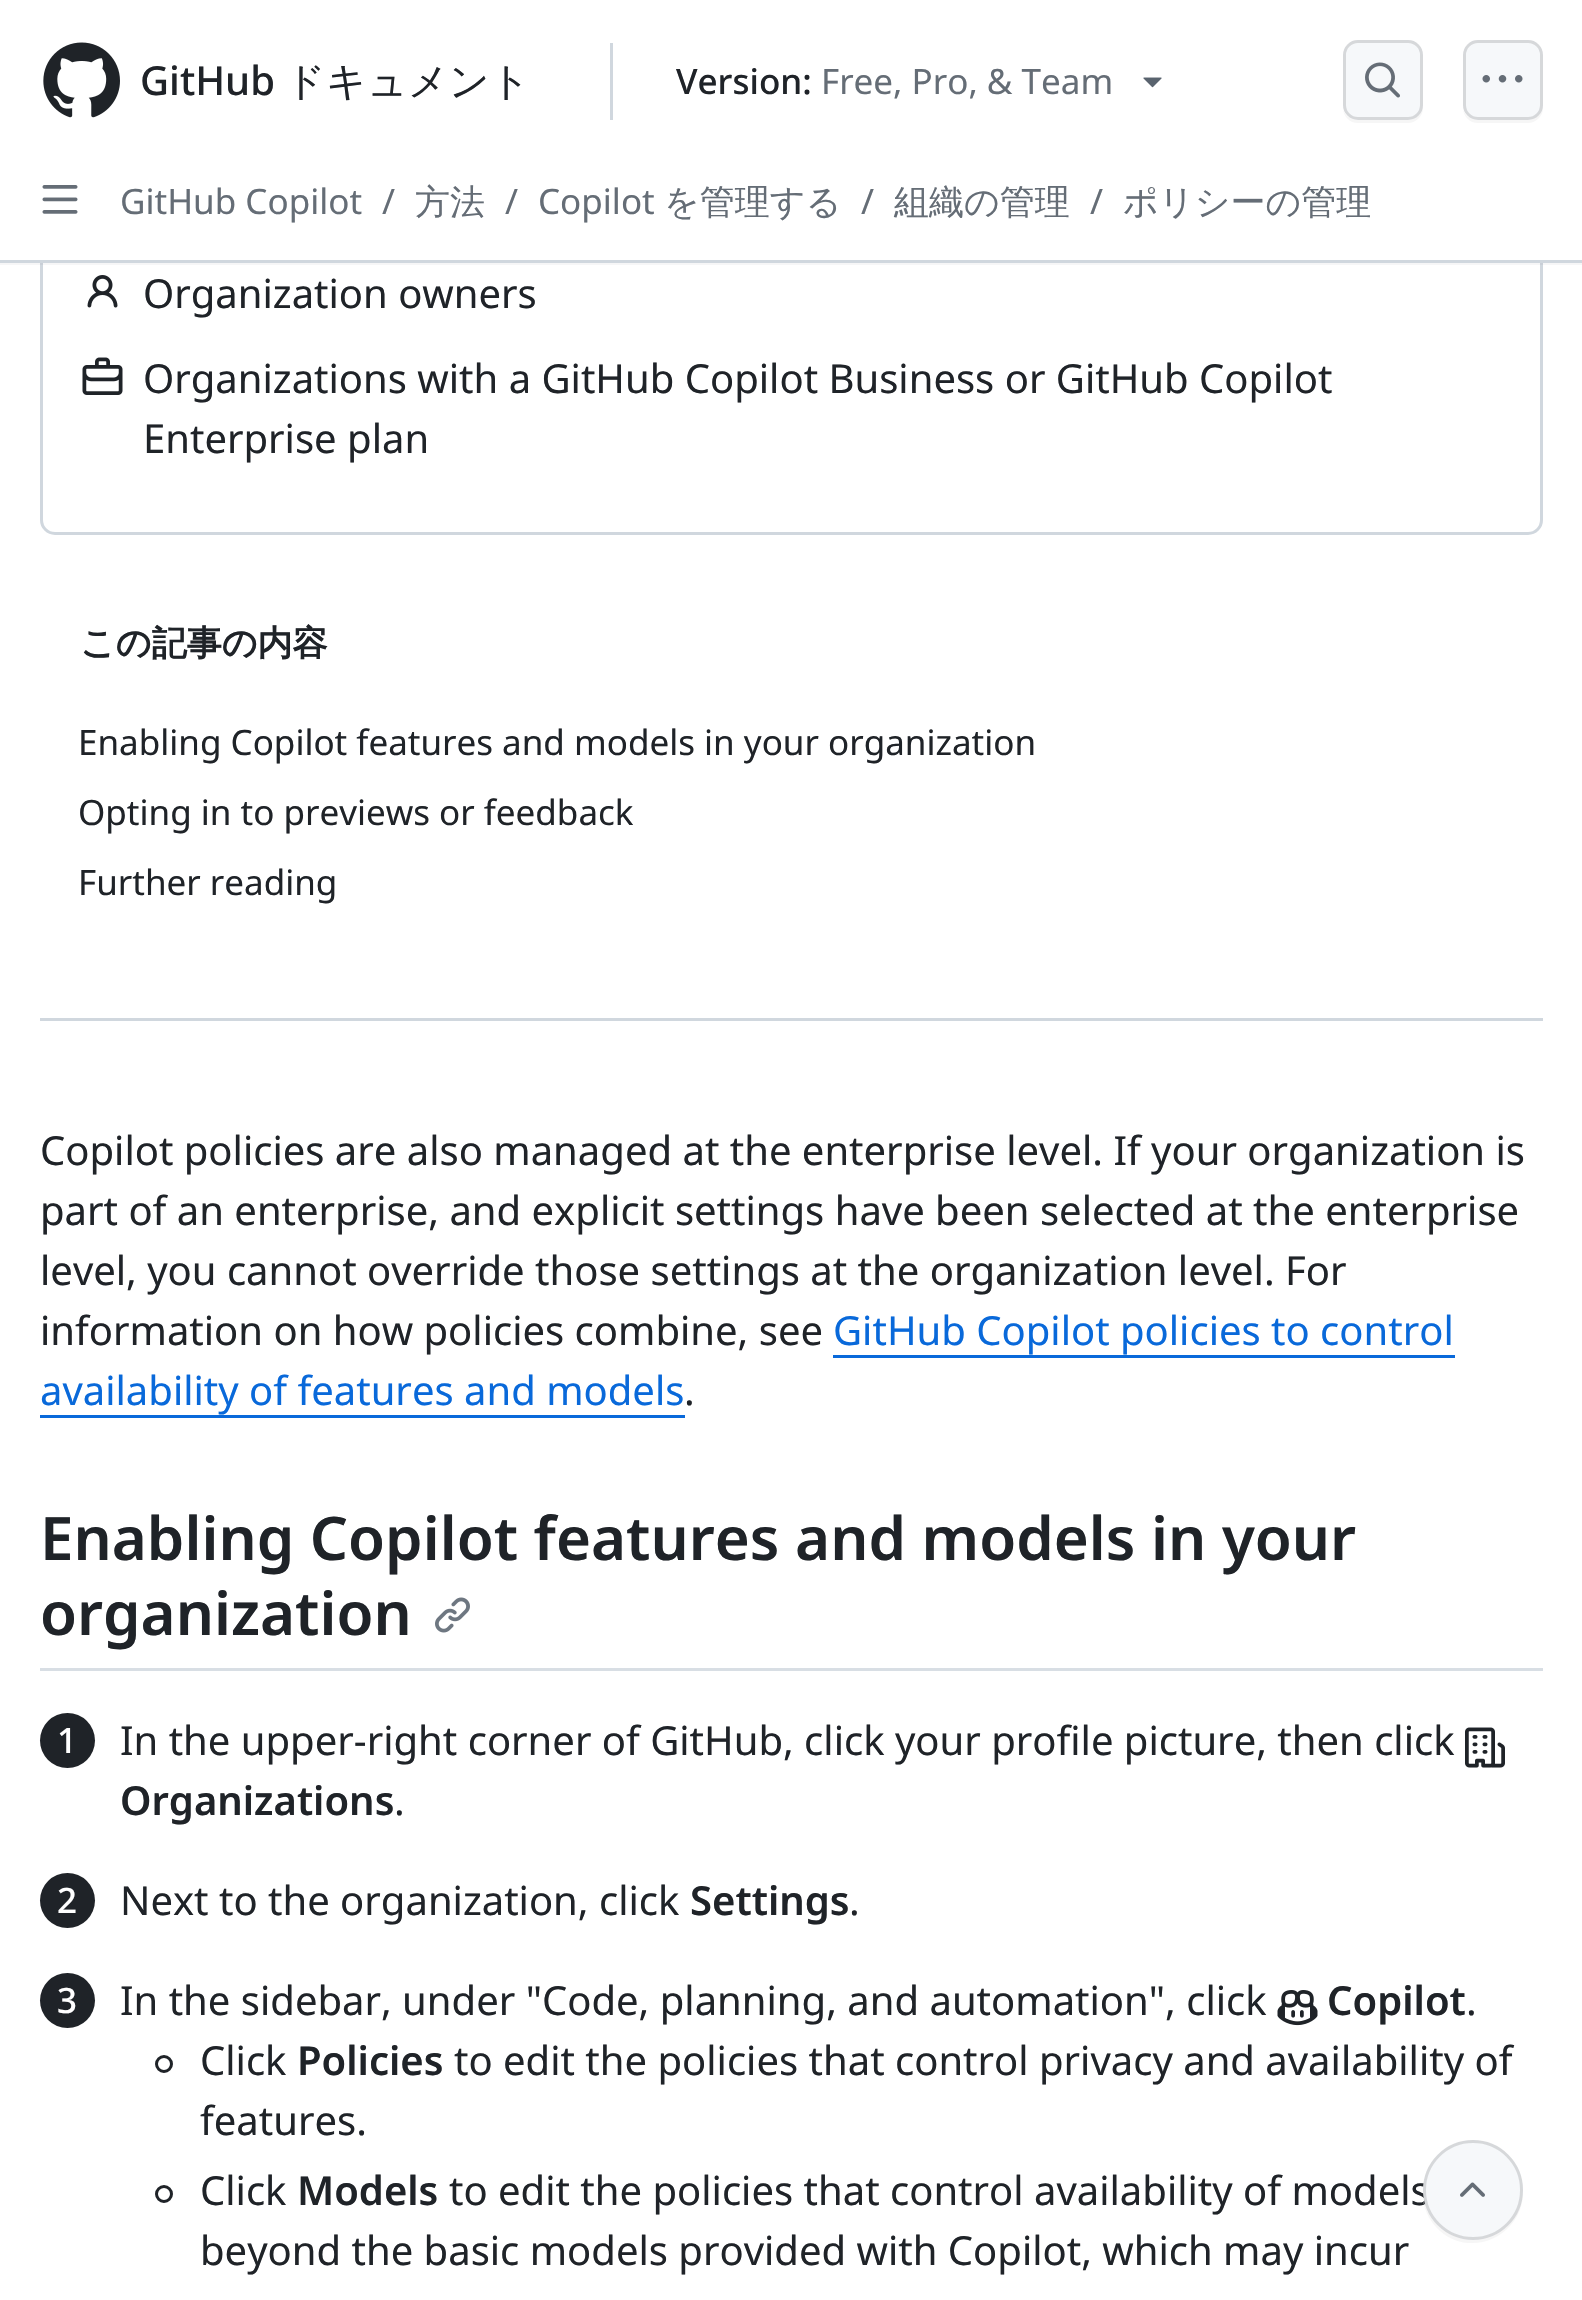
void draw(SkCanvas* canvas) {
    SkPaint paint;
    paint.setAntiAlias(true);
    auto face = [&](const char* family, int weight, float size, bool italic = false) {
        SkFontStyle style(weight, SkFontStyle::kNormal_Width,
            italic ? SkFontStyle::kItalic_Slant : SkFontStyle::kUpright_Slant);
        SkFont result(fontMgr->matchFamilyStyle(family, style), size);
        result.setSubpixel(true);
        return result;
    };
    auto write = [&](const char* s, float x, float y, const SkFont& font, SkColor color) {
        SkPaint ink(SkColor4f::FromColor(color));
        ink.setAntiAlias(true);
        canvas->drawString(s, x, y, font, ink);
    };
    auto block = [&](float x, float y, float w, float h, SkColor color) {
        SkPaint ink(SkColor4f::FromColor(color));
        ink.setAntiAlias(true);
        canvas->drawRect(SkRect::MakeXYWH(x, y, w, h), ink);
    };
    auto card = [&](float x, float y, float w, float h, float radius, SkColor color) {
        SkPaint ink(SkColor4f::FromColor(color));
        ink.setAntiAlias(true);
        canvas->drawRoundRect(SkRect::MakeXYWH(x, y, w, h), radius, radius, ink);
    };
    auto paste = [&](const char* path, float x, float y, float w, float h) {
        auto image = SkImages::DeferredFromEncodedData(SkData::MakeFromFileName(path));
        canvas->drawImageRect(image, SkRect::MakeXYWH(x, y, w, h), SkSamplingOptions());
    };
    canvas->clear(SK_ColorWHITE);
    paint.setStyle(SkPaint::kStroke_Style);
    paint.setStrokeWidth(3);
    paint.setColor(SkColorSetRGB(208, 215, 222));
    canvas->drawRoundRect(SkRect::MakeXYWH(41.5f, 121.5f, 1500, 412), 13.5f, 13.5f, paint);
    paint.setStyle(SkPaint::kFill_Style);
    paint.setColor(SkColorSetARGB(10, 31, 35, 40));
    canvas->drawPath(SkPathBuilder().moveTo(0, 262).lineTo(0, 265).lineTo(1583, 265).lineTo(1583, 3).lineTo(1582, 3).lineTo(1582, 262).close().detach(), paint);
    block(40, 120, 1503, 140, SK_ColorWHITE);
    block(0, 260, 1582, 3, SkColorSetRGB(208, 215, 222));
    paste("pic1.png", 43, 42, 77, 76);
    auto kFont1 = face("Noto Sans", 500, 40);
    write("GitHub", 140, 95, kFont1, SkColorSetRGB(31, 35, 40));
    auto kFont2 = face("WenQuanYi Zen Hei", 500, 40);
    write("ドキュメント", 285, 95, kFont2, SkColorSetRGB(31, 35, 40));
    block(610, 43, 3, 77, SkColorSetRGB(208, 215, 222));
    auto kFont3 = face("Noto Sans", 500, 35);
    write("Version:", 676, 94, kFont3, SkColorSetRGB(31, 35, 40));
    auto kFont4 = face("Noto Sans", 400, 35);
    write("Free, Pro, & Team", 821, 94, kFont4, SkColorSetRGB(101, 109, 118));
    paste("pic2.png", 1143, 77, 19, 11);
    paint.setColor(SkColorSetRGB(246, 246, 246));
    canvas->drawPath(SkPathBuilder().moveTo(1343, 109).cubicTo(1344, 117, 1350, 123, 1358, 123).lineTo(1408, 123).cubicTo(1416, 123, 1423, 116, 1423, 108).lineTo(1423, 58).lineTo(1422, 54).lineTo(1422, 108).lineTo(1420, 113).cubicTo(1415, 121, 1407, 120, 1399, 120).lineTo(1366, 120).cubicTo(1356, 120, 1346, 120, 1343, 109).close().detach(), paint);
    card(1343, 40, 80, 80, 15, SkColorSetRGB(246, 248, 250));
    paint.setStyle(SkPaint::kStroke_Style);
    paint.setColor(SkColorSetARGB(38, 31, 35, 40));
    canvas->drawRoundRect(SkRect::MakeXYWH(1344.5f, 41.5f, 77, 77), 13.5f, 13.5f, paint);
    paste("pic3.png", 1365, 62, 35, 36);
    paint.setStyle(SkPaint::kFill_Style);
    paint.setColor(SkColorSetRGB(246, 246, 246));
    canvas->drawPath(SkPathBuilder().moveTo(1463, 109).cubicTo(1464, 117, 1470, 123, 1478, 123).lineTo(1528, 123).cubicTo(1536, 123, 1543, 116, 1543, 108).lineTo(1543, 58).lineTo(1542, 54).lineTo(1542, 108).lineTo(1540, 113).cubicTo(1535, 121, 1527, 120, 1519, 120).lineTo(1486, 120).cubicTo(1476, 120, 1466, 120, 1463, 109).close().detach(), paint);
    card(1463, 40, 80, 80, 15, SkColorSetRGB(246, 248, 250));
    paint.setStyle(SkPaint::kStroke_Style);
    paint.setColor(SkColorSetARGB(38, 31, 35, 40));
    canvas->drawRoundRect(SkRect::MakeXYWH(1464.5f, 41.5f, 77, 77), 13.5f, 13.5f, paint);
    paste("pic4.png", 1482, 75, 41, 8);
    paste("pic5.png", 42, 185, 36, 29);
    write("GitHub Copilot", 120, 214, kFont4, SkColorSetRGB(101, 109, 118));
    write("/", 382, 214, kFont4, SkColorSetRGB(101, 109, 118));
    auto kFont5 = face("WenQuanYi Zen Hei", 500, 35);
    write("方法", 415, 214, kFont5, SkColorSetRGB(101, 109, 118));
    write("/", 505, 214, kFont4, SkColorSetRGB(101, 109, 118));
    write("Copilot", 538, 214, kFont4, SkColorSetRGB(101, 109, 118));
    write("を管理する", 664, 214, kFont5, SkColorSetRGB(101, 109, 118));
    write("/", 861, 214, kFont4, SkColorSetRGB(101, 109, 118));
    write("組織の管理", 894, 214, kFont5, SkColorSetRGB(101, 109, 118));
    write("/", 1090, 214, kFont4, SkColorSetRGB(101, 109, 118));
    write("ポリシーの管理", 1123, 214, kFont5, SkColorSetRGB(101, 109, 118));
    paste("pic6.png", 87, 275, 31, 33);
    auto kFont6 = face("Noto Sans", 400, 40);
    write("Organization owners", 143, 308, kFont6, SkColorSetRGB(31, 35, 40));
    paste("pic7.png", 82, 357, 41, 38);
    write("Organizations with a GitHub Copilot Business or GitHub Copilot", 143, 393, kFont6, SkColorSetRGB(31, 35, 40));
    write("Enterprise plan", 143, 453, kFont6, SkColorSetRGB(31, 35, 40));
    block(40, 1018, 1503, 3, SkColorSetRGB(208, 215, 222));
    auto kFont7 = face("WenQuanYi Zen Hei", 700, 35);
    write("この記事の内容", 80, 655, kFont7, SkColorSetRGB(31, 35, 40));
    write("Enabling Copilot features and models in your organization", 78, 755, kFont4, SkColorSetRGB(31, 35, 40));
    write("Opting in to previews or feedback", 78, 825, kFont4, SkColorSetRGB(31, 35, 40));
    write("Further reading", 78, 895, kFont4, SkColorSetRGB(31, 35, 40));
    write("Copilot policies are also managed at the enterprise level. If your organization is", 40, 1165, kFont6, SkColorSetRGB(31, 35, 40));
    write("part of an enterprise, and explicit settings have been selected at the enterprise", 40, 1225, kFont6, SkColorSetRGB(31, 35, 40));
    write("level, you cannot override those settings at the organization level. For", 40, 1285, kFont6, SkColorSetRGB(31, 35, 40));
    write("information on how policies combine, see", 40, 1345, kFont6, SkColorSetRGB(31, 35, 40));
    write("GitHub Copilot policies to control", 833, 1345, kFont6, SkColorSetRGB(9, 105, 218));
    block(833, 1355, 622, 3, SkColorSetRGB(9, 105, 218));
    write("availability of features and models", 40, 1405, kFont6, SkColorSetRGB(9, 105, 218));
    block(40, 1415, 645, 3, SkColorSetRGB(9, 105, 218));
    write(".", 684, 1405, kFont6, SkColorSetRGB(31, 35, 40));
    block(40, 1668, 1503, 3, SkColorSetRGB(216, 222, 228));
    auto kFont8 = face("Noto Sans", 600, 60);
    write("Enabling Copilot features and models in your", 40, 1560, kFont8, SkColorSetRGB(31, 35, 40));
    write("organization", 40, 1635, kFont8, SkColorSetRGB(31, 35, 40));
    paste("pic8.png", 435, 1597, 35, 36);
    paint.setStyle(SkPaint::kFill_Style);
    paint.setColor(SkColorSetRGB(31, 35, 40));
    canvas->drawCircle(67.5f, 1740.5f, 27.5f, paint);
    write("1", 57, 1753, kFont3, SK_ColorWHITE);
    write("In the upper-right corner of GitHub, click your profile picture, then click", 120, 1755, kFont6, SkColorSetRGB(31, 35, 40));
    paste("pic9.png", 1465, 1727, 40, 41);
    auto kFont9 = face("Noto Sans", 600, 40);
    write("Organizations", 120, 1815, kFont9, SkColorSetRGB(31, 35, 40));
    write(".", 394, 1815, kFont6, SkColorSetRGB(31, 35, 40));
    canvas->drawCircle(67.5f, 1900.5f, 27.5f, paint);
    write("2", 57, 1913, kFont3, SK_ColorWHITE);
    write("Next to the organization, click", 120, 1915, kFont6, SkColorSetRGB(31, 35, 40));
    write("Settings", 690, 1915, kFont9, SkColorSetRGB(31, 35, 40));
    write(".", 849, 1915, kFont6, SkColorSetRGB(31, 35, 40));
    canvas->drawCircle(67.5f, 2000.5f, 27.5f, paint);
    write("3", 57, 2013, kFont3, SK_ColorWHITE);
    write("In the sidebar, under \"Code, planning, and automation\", click", 120, 2015, kFont6, SkColorSetRGB(31, 35, 40));
    paste("pic10.png", 1277, 1990, 41, 36);
    write("Copilot", 1327, 2015, kFont9, SkColorSetRGB(31, 35, 40));
    write(".", 1466, 2015, kFont6, SkColorSetRGB(31, 35, 40));
    paint.setStyle(SkPaint::kStroke_Style);
    canvas->drawCircle(164, 2064, 7.5f, paint);
    write("Click", 200, 2075, kFont6, SkColorSetRGB(31, 35, 40));
    write("Policies", 297, 2075, kFont9, SkColorSetRGB(31, 35, 40));
    write("to edit the policies that control privacy and availability of", 454, 2075, kFont6, SkColorSetRGB(31, 35, 40));
    write("features.", 200, 2135, kFont6, SkColorSetRGB(31, 35, 40));
    canvas->drawCircle(164, 2194, 7.5f, paint);
    write("Click", 200, 2205, kFont6, SkColorSetRGB(31, 35, 40));
    write("Models", 297, 2205, kFont9, SkColorSetRGB(31, 35, 40));
    write("to edit the policies that control availability of models", 449, 2205, kFont6, SkColorSetRGB(31, 35, 40));
    write("beyond the basic models provided with Copilot, which may incur", 200, 2265, kFont6, SkColorSetRGB(31, 35, 40));
    paint.setStyle(SkPaint::kFill_Style);
    paint.setColor(SkColorSetRGB(246, 246, 246));
    canvas->drawPath(SkPathBuilder().moveTo(1423, 2200).cubicTo(1425, 2212, 1431, 2223, 1440, 2231).cubicTo(1476, 2262, 1531, 2229, 1522, 2183).cubicTo(1528, 2228, 1475, 2257, 1441, 2228).cubicTo(1432, 2221, 1426, 2211, 1423, 2200).close().detach(), paint);
    paint.setColor(SkColorSetRGB(246, 248, 250));
    canvas->drawCircle(1473, 2190, 50, paint);
    paint.setStyle(SkPaint::kStroke_Style);
    paint.setColor(SkColorSetARGB(38, 31, 35, 40));
    canvas->drawCircle(1473, 2190, 48.5f, paint);
    paste("pic11.png", 1460, 2182, 25, 15);
}
